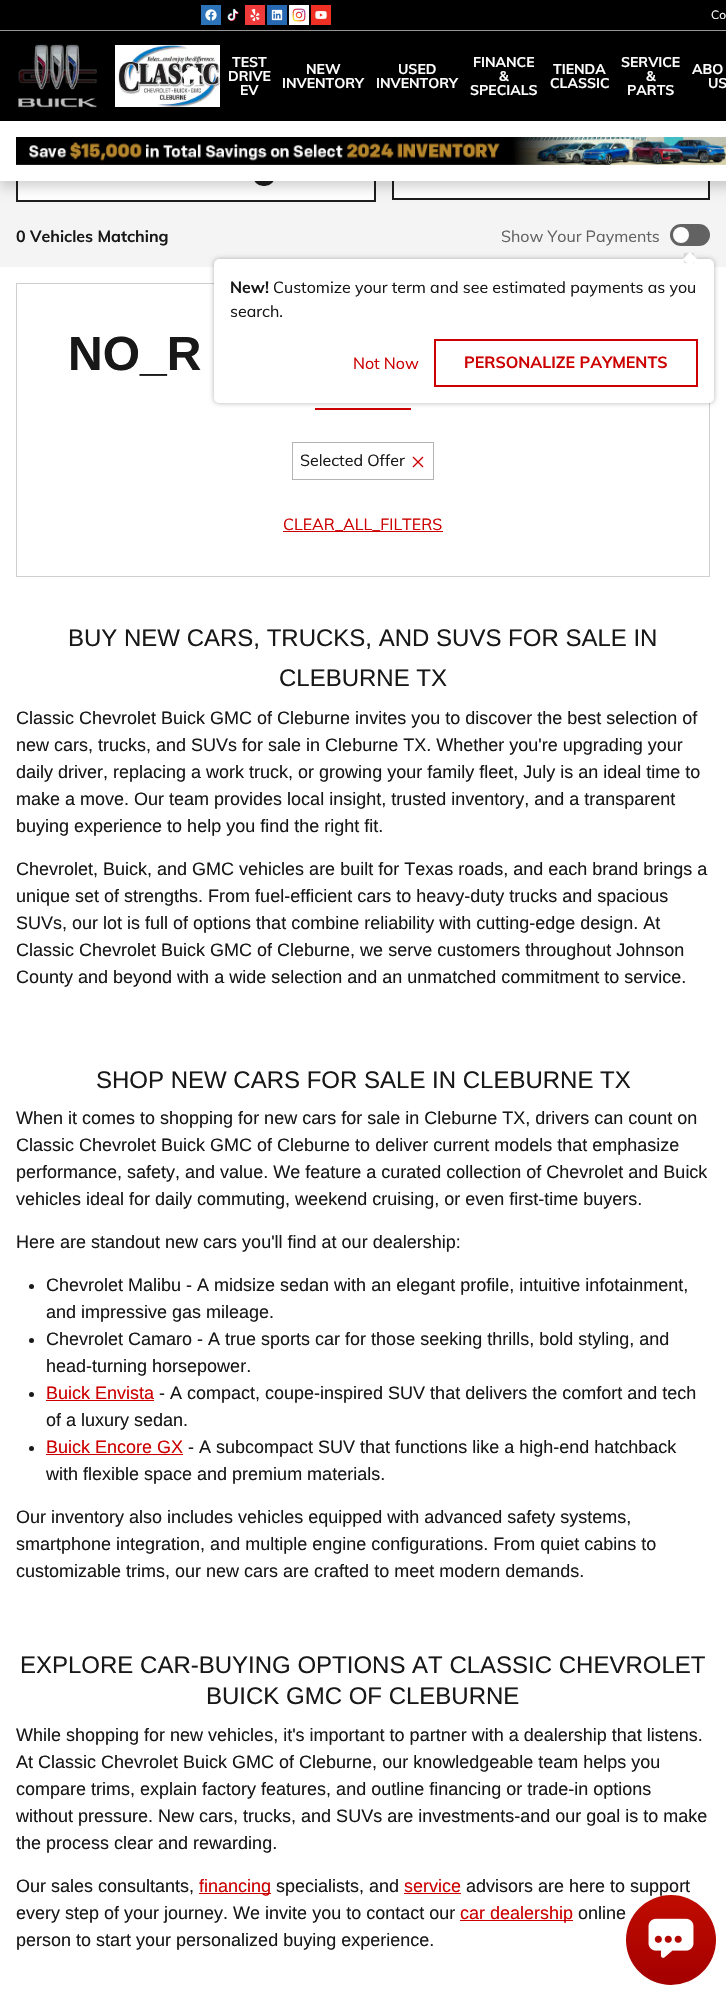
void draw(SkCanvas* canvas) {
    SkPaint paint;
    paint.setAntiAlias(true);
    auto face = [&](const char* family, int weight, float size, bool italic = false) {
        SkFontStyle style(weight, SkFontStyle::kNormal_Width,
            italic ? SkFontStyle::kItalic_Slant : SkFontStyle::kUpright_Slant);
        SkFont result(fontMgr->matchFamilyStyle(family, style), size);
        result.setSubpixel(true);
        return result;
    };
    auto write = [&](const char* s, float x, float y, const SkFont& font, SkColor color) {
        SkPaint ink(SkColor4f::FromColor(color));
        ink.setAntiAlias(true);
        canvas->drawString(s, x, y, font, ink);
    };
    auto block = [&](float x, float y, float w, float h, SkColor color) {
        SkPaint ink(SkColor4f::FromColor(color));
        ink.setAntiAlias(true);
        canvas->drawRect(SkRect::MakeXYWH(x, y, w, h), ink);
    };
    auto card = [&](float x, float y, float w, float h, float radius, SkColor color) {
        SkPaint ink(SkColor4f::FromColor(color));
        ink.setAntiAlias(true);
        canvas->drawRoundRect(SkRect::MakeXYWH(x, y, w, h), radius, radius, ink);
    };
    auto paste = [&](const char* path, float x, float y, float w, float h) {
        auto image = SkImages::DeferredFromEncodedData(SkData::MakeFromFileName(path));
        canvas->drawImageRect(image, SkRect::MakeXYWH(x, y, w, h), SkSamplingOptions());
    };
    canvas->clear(SK_ColorWHITE);
    block(0, 181, 726, 86, SkColorSetRGB(244, 244, 244));
    block(18, 181, 356, 19, SK_ColorWHITE);
    paint.setStyle(SkPaint::kStroke_Style);
    paint.setStrokeWidth(2);
    paint.setColor(SkColorSetRGB(29, 29, 29));
    canvas->drawRect(SkRect::MakeXYWH(17, 152, 358, 49), paint);
    card(253, 166, 22, 20, 10, SkColorSetRGB(29, 29, 29));
    block(394, 181, 314, 17, SK_ColorWHITE);
    canvas->drawRect(SkRect::MakeXYWH(393, 152, 316, 47), paint);
    paint.setStyle(SkPaint::kFill_Style);
    paint.setColor(SkColorSetARGB(46, 0, 0, 0));
    paint.setMaskFilter(SkMaskFilter::MakeBlur(kNormal_SkBlurStyle, 6));
    canvas->drawRect(SkRect::MakeXYWH(0, 6, 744, 181), paint);
    paint.setMaskFilter(nullptr);
    block(0, 0, 726, 121, SK_ColorBLACK);
    block(0, 30, 726, 1, SkColorSetRGB(150, 150, 150));
    paste("pic1.png", 201, 5, 20, 20);
    paste("pic2.png", 227, 8, 12, 13);
    paste("pic3.png", 245, 5, 20, 20);
    paste("pic4.png", 267, 5, 20, 20);
    paste("pic5.png", 289, 5, 20, 20);
    paste("pic6.png", 311, 5, 20, 20);
    auto kFont1 = face("Muli", 400, 12);
    write("Co", 711, 19, kFont1, SK_ColorWHITE);
    paste("pic8.png", 18, 69, 79, 15);
    paste("pic7.png", 18, 44, 79, 64);
    paste("pic9.png", 115, 45, 105, 62);
    paste("pic10.png", 180, 65, 24, 21);
    auto kFont2 = face("Muli", 700, 14);
    write("TEST", 232, 67, kFont2, SK_ColorWHITE);
    write("DRIVE", 228, 81, kFont2, SK_ColorWHITE);
    write("EV", 240, 95, kFont2, SK_ColorWHITE);
    write("NEW", 306, 74, kFont2, SK_ColorWHITE);
    write("INVENTORY", 282, 88, kFont2, SK_ColorWHITE);
    write("USED", 398, 74, kFont2, SK_ColorWHITE);
    write("INVENTORY", 376, 88, kFont2, SK_ColorWHITE);
    write("FINANCE", 473, 67, kFont2, SK_ColorWHITE);
    write("&", 499, 81, kFont2, SK_ColorWHITE);
    write("SPECIALS", 470, 95, kFont2, SK_ColorWHITE);
    write("TIENDA", 553, 74, kFont2, SK_ColorWHITE);
    write("CLASSIC", 550, 88, kFont2, SK_ColorWHITE);
    write("SERVICE", 621, 67, kFont2, SK_ColorWHITE);
    write("&", 646, 81, kFont2, SK_ColorWHITE);
    write("PARTS", 627, 95, kFont2, SK_ColorWHITE);
    write("ABO", 692, 74, kFont2, SK_ColorWHITE);
    write("US", 708, 88, kFont2, SK_ColorWHITE);
    block(0, 121, 726, 60, SK_ColorWHITE);
    paste("pic11.png", 16, 137, 710, 28);
    auto kFont3 = face("Muli", 700, 16);
    write("0 Vehicles Matching", 16, 242, kFont3, SkColorSetRGB(24, 24, 24));
    auto kFont4 = face("Muli", 400, 16);
    write("Show Your Payments", 501, 242, kFont4, SkColorSetRGB(98, 98, 98));
    card(670, 224, 40, 22, 11, SkColorSetRGB(98, 98, 98));
    paint.setColor(SK_ColorWHITE);
    canvas->drawCircle(681, 235, 8, paint);
    paint.setStyle(SkPaint::kStroke_Style);
    paint.setStrokeWidth(1);
    paint.setColor(SkColorSetRGB(207, 207, 207));
    canvas->drawRect(SkRect::MakeXYWH(16.5f, 283.5f, 693, 293), paint);
    block(315, 408, 96, 2, SkColorSetRGB(204, 0, 0));
    paint.setStyle(SkPaint::kFill_Style);
    paint.setColor(SkColorSetARGB(77, 0, 0, 0));
    paint.setMaskFilter(SkMaskFilter::MakeBlur(kNormal_SkBlurStyle, 2.5f));
    canvas->drawRoundRect(SkRect::MakeXYWH(214, 259, 500, 144), 5, 5, paint);
    paint.setMaskFilter(nullptr);
    card(214, 259, 500, 144, 5, SK_ColorWHITE);
    paint.setColor(SkColorSetARGB(26, 0, 0, 0));
    paint.setMaskFilter(SkMaskFilter::MakeBlur(kNormal_SkBlurStyle, 0.5f));
    canvas->drawRect(SkRect::MakeXYWH(684, 253, 10, 10), paint);
    paint.setMaskFilter(nullptr);
    paint.setColor(SK_ColorWHITE);
    canvas->drawPath(SkPathBuilder().moveTo(690, 252).lineTo(697, 259).lineTo(690, 266).lineTo(683, 259).close().detach(), paint);
    write("New!", 230, 293, kFont3, SkColorSetRGB(24, 24, 24));
    write("Customize your term and see estimated payments as you", 273, 293, kFont4, SkColorSetRGB(24, 24, 24));
    write("search.", 230, 317, kFont4, SkColorSetRGB(24, 24, 24));
    write("Not Now", 353, 369, kFont4, SkColorSetRGB(204, 0, 0));
    paint.setStyle(SkPaint::kStroke_Style);
    paint.setStrokeWidth(2);
    paint.setColor(SkColorSetRGB(204, 0, 0));
    canvas->drawRect(SkRect::MakeXYWH(435, 340, 262, 46), paint);
    write("PERSONALIZE PAYMENTS", 464, 368, kFont3, SkColorSetRGB(204, 0, 0));
    auto kFont5 = face("Liberation Sans", 700, 48);
    write("NO_R", 68, 370, kFont5, SkColorSetRGB(24, 24, 24));
    paint.setStrokeWidth(1);
    paint.setColor(SkColorSetRGB(180, 180, 180));
    canvas->drawRect(SkRect::MakeXYWH(292.5f, 442.5f, 141, 37), paint);
    write("Selected Offer", 300, 466, kFont4, SkColorSetRGB(24, 24, 24));
    paste("pic12.png", 412, 456, 12, 12);
    write("CLEAR_ALL_FILTERS", 283, 530, kFont4, SkColorSetRGB(204, 0, 0));
    block(283, 531, 160, 1, SkColorSetRGB(204, 0, 0));
    auto kFont6 = face("Liberation Sans", 400, 24);
    write("BUY NEW CARS, TRUCKS, AND SUVS FOR SALE IN", 68, 646, kFont6, SkColorSetRGB(24, 24, 24));
    write("CLEBURNE TX", 279, 686, kFont6, SkColorSetRGB(24, 24, 24));
    auto kFont7 = face("Liberation Sans", 400, 18);
    write("Classic Chevrolet Buick GMC of Cleburne invites you to discover the best selection of", 16, 724, kFont7, SkColorSetRGB(24, 24, 24));
    write("new cars, trucks, and SUVs for sale in Cleburne TX. Whether you're upgrading your", 16, 751, kFont7, SkColorSetRGB(24, 24, 24));
    write("daily driver, replacing a work truck, or growing your family fleet, July is an ideal time to", 16, 778, kFont7, SkColorSetRGB(24, 24, 24));
    write("make a move. Our team provides local insight, trusted inventory, and a transparent", 16, 805, kFont7, SkColorSetRGB(24, 24, 24));
    write("buying experience to help you find the right fit.", 16, 832, kFont7, SkColorSetRGB(24, 24, 24));
    write("Chevrolet, Buick, and GMC vehicles are built for Texas roads, and each brand brings a", 16, 875, kFont7, SkColorSetRGB(24, 24, 24));
    write("unique set of strengths. From fuel-efficient cars to heavy-duty trucks and spacious", 16, 902, kFont7, SkColorSetRGB(24, 24, 24));
    write("SUVs, our lot is full of options that combine reliability with cutting-edge design. At", 16, 929, kFont7, SkColorSetRGB(24, 24, 24));
    write("Classic Chevrolet Buick GMC of Cleburne, we serve customers throughout Johnson", 16, 956, kFont7, SkColorSetRGB(24, 24, 24));
    write("County and beyond with a wide selection and an unmatched commitment to service.", 16, 983, kFont7, SkColorSetRGB(24, 24, 24));
    write("SHOP NEW CARS FOR SALE IN CLEBURNE TX", 96, 1088, kFont6, SkColorSetRGB(24, 24, 24));
    write("When it comes to shopping for new cars for sale in Cleburne TX, drivers can count on", 16, 1124, kFont7, SkColorSetRGB(24, 24, 24));
    write("Classic Chevrolet Buick GMC of Cleburne to deliver current models that emphasize", 16, 1151, kFont7, SkColorSetRGB(24, 24, 24));
    write("performance, safety, and value. We feature a curated collection of Chevrolet and Buick", 16, 1178, kFont7, SkColorSetRGB(24, 24, 24));
    write("vehicles ideal for daily commuting, weekend cruising, or even first-time buyers.", 16, 1205, kFont7, SkColorSetRGB(24, 24, 24));
    write("Here are standout new cars you'll find at our dealership:", 16, 1248, kFont7, SkColorSetRGB(24, 24, 24));
    paint.setStyle(SkPaint::kFill_Style);
    paint.setColor(SkColorSetRGB(26, 26, 26));
    canvas->drawCircle(31.5f, 1286.5f, 2.5f, paint);
    write("Chevrolet Malibu - A midsize sedan with an elegant profile, intuitive infotainment,", 46, 1291, kFont7, SkColorSetRGB(24, 24, 24));
    write("and impressive gas mileage.", 46, 1318, kFont7, SkColorSetRGB(24, 24, 24));
    canvas->drawCircle(31.5f, 1340.5f, 2.5f, paint);
    write("Chevrolet Camaro - A true sports car for those seeking thrills, bold styling, and", 46, 1345, kFont7, SkColorSetRGB(24, 24, 24));
    write("head-turning horsepower.", 46, 1372, kFont7, SkColorSetRGB(24, 24, 24));
    canvas->drawCircle(31.5f, 1394.5f, 2.5f, paint);
    write("Buick Envista", 46, 1399, kFont7, SkColorSetRGB(204, 0, 0));
    block(46, 1400, 108, 1, SkColorSetRGB(204, 0, 0));
    write("- A compact, coupe-inspired SUV that delivers the comfort and tech", 159, 1399, kFont7, SkColorSetRGB(24, 24, 24));
    write("of a luxury sedan.", 46, 1426, kFont7, SkColorSetRGB(24, 24, 24));
    canvas->drawCircle(31.5f, 1448.5f, 2.5f, paint);
    write("Buick Encore GX", 46, 1453, kFont7, SkColorSetRGB(204, 0, 0));
    block(46, 1454, 137, 1, SkColorSetRGB(204, 0, 0));
    write("- A subcompact SUV that functions like a high-end hatchback", 188, 1453, kFont7, SkColorSetRGB(24, 24, 24));
    write("with flexible space and premium materials.", 46, 1480, kFont7, SkColorSetRGB(24, 24, 24));
    write("Our inventory also includes vehicles equipped with advanced safety systems,", 16, 1523, kFont7, SkColorSetRGB(24, 24, 24));
    write("smartphone integration, and multiple engine configurations. From quiet cabins to", 16, 1550, kFont7, SkColorSetRGB(24, 24, 24));
    write("customizable trims, our new cars are crafted to meet modern demands.", 16, 1577, kFont7, SkColorSetRGB(24, 24, 24));
    write("EXPLORE CAR-BUYING OPTIONS AT CLASSIC CHEVROLET", 20, 1673, kFont6, SkColorSetRGB(24, 24, 24));
    write("BUICK GMC OF CLEBURNE", 206, 1704, kFont6, SkColorSetRGB(24, 24, 24));
    write("While shopping for new vehicles, it's important to partner with a dealership that listens.", 16, 1741, kFont7, SkColorSetRGB(24, 24, 24));
    write("At Classic Chevrolet Buick GMC of Cleburne, our knowledgeable team helps you", 16, 1768, kFont7, SkColorSetRGB(24, 24, 24));
    write("compare trims, explain factory features, and outline financing or trade-in options", 16, 1795, kFont7, SkColorSetRGB(24, 24, 24));
    write("without pressure. New cars, trucks, and SUVs are investments-and our goal is to make", 16, 1822, kFont7, SkColorSetRGB(24, 24, 24));
    write("the process clear and rewarding.", 16, 1849, kFont7, SkColorSetRGB(24, 24, 24));
    write("Our sales consultants,", 16, 1892, kFont7, SkColorSetRGB(24, 24, 24));
    block(199, 1893, 72, 1, SkColorSetRGB(204, 0, 0));
    write("financing", 199, 1892, kFont7, SkColorSetRGB(204, 0, 0));
    write("specialists, and", 276, 1892, kFont7, SkColorSetRGB(24, 24, 24));
    write("service", 404, 1892, kFont7, SkColorSetRGB(204, 0, 0));
    block(404, 1893, 57, 1, SkColorSetRGB(204, 0, 0));
    write("advisors are here to support", 466, 1892, kFont7, SkColorSetRGB(24, 24, 24));
    write("every step of your journey. We invite you to contact our", 16, 1919, kFont7, SkColorSetRGB(24, 24, 24));
    block(460, 1920, 113, 1, SkColorSetRGB(204, 0, 0));
    write("car dealership", 460, 1919, kFont7, SkColorSetRGB(204, 0, 0));
    write("online", 578, 1919, kFont7, SkColorSetRGB(24, 24, 24));
    write("person to start your personalized buying experience.", 16, 1946, kFont7, SkColorSetRGB(24, 24, 24));
    {
        const SkColor colors[] = {SkColorSetRGB(192, 12, 0), SkColorSetRGB(163, 0, 0)};
        const float stops[] = {0, 1};
        const SkPoint ends[] = {{671, 1895}, {671, 1985}};
        paint.setShader(SkGradientShader::MakeLinear(ends, colors, stops, 2, SkTileMode::kClamp));
        paint.setAlpha(255);
    }
    canvas->drawCircle(671, 1940, 45, paint);
    paste("pic13.png", 648, 1918, 46, 40);
}
